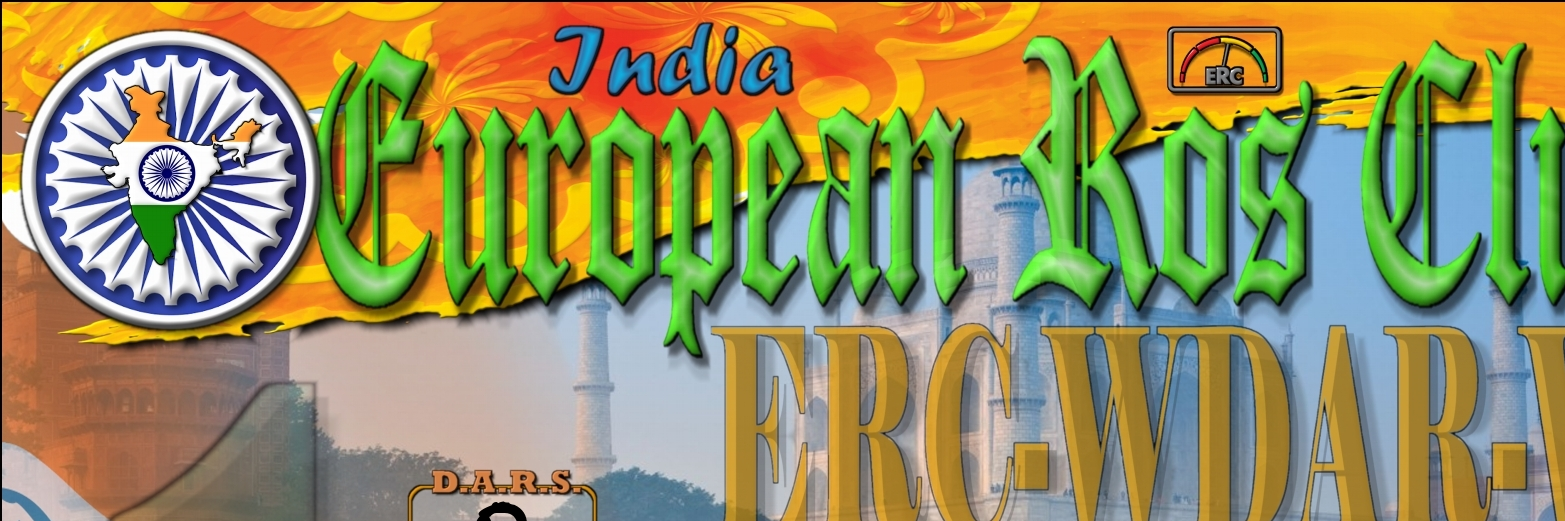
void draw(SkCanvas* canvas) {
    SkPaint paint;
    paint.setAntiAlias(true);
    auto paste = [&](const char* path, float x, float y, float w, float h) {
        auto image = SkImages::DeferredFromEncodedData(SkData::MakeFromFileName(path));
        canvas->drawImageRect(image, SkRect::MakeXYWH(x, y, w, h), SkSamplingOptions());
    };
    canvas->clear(SK_ColorWHITE);
    paste("pic1.png", 0, 0, 1565, 521);
}
